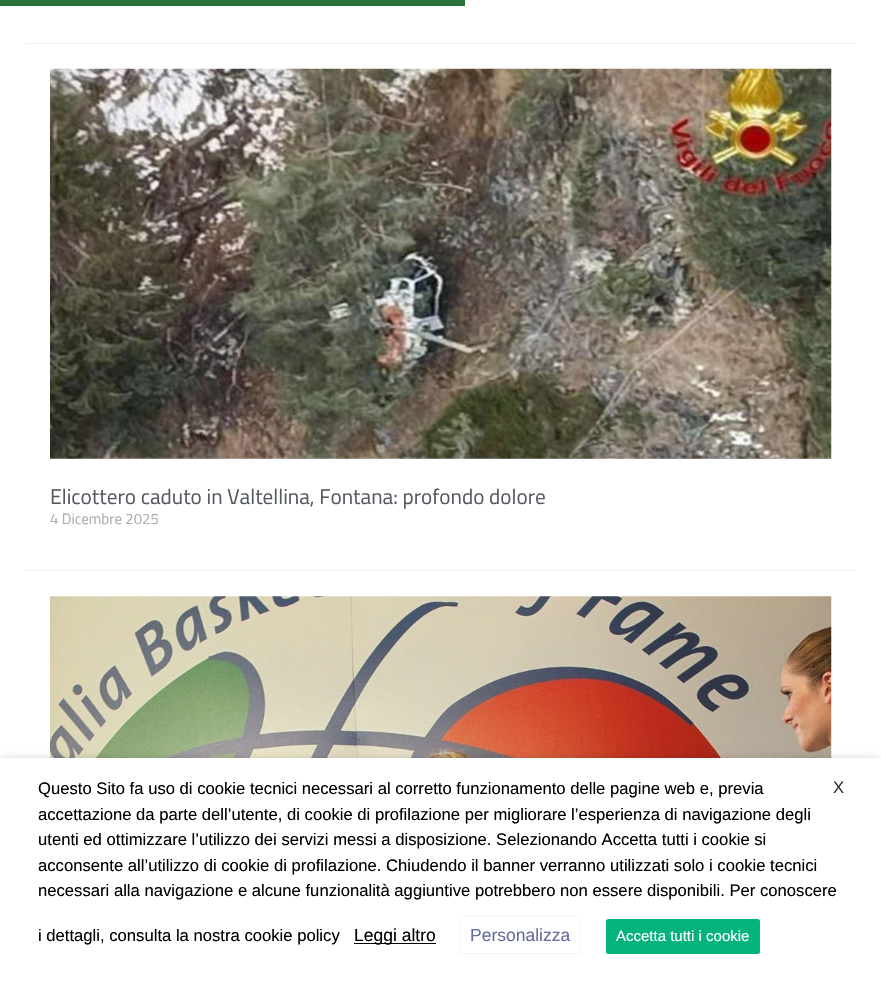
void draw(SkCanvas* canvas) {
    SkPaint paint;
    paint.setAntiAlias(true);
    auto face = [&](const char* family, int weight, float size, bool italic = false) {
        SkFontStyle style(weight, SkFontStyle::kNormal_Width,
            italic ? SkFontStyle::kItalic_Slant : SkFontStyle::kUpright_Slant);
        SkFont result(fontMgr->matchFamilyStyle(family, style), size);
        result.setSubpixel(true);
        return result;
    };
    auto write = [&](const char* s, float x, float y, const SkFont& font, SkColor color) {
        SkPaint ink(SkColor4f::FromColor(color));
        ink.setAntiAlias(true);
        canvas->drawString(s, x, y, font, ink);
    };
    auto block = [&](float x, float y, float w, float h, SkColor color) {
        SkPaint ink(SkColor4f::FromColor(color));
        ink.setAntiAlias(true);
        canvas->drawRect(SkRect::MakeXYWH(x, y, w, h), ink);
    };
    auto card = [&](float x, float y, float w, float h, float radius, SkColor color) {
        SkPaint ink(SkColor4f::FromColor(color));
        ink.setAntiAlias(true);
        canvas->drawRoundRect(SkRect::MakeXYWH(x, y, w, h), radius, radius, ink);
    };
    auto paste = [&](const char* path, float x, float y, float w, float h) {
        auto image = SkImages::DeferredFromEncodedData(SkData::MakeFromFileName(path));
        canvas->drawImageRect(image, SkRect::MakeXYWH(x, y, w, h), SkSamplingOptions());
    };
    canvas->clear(SK_ColorWHITE);
    block(0, 0, 465, 6, SkColorSetRGB(41, 113, 56));
    block(25, 43, 831, 1, SkColorSetRGB(243, 243, 243));
    block(25, 570, 831, 1, SkColorSetRGB(243, 243, 243));
    paste("pic1.png", 50, 68, 782, 391);
    auto kFont1 = face("Titillium Web", 400, 21.25f);
    write("Elicottero caduto in Valtellina, Fontana: profondo dolore", 50, 504, kFont1, SkColorSetRGB(84, 89, 95));
    auto kFont2 = face("Titillium Web", 400, 15);
    write("4 Dicembre 2025", 50, 524, kFont2, SkColorSetRGB(173, 173, 173));
    paste("pic2.png", 50, 596, 782, 162);
    paint.setColor(SkColorSetARGB(128, 0, 0, 0));
    paint.setMaskFilter(SkMaskFilter::MakeBlur(kNormal_SkBlurStyle, 6));
    canvas->drawRect(SkRect::MakeXYWH(0, 764, 881, 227), paint);
    paint.setMaskFilter(nullptr);
    block(0, 758, 881, 226, SK_ColorWHITE);
    auto kFont3 = face("Liberation Sans", 400, 16.65f);
    write("Questo Sito fa uso di cookie tecnici necessari al corretto funzionamento delle pagine web e, previa", 38, 794, kFont3, SK_ColorBLACK);
    write("accettazione da parte dell’utente, di cookie di profilazione per migliorare l’esperienza di navigazione degli", 38, 820, kFont3, SK_ColorBLACK);
    write("utenti ed ottimizzare l’utilizzo dei servizi messi a disposizione. Selezionando Accetta tutti i cookie si", 38, 845, kFont3, SK_ColorBLACK);
    write("acconsente all’utilizzo di cookie di profilazione. Chiudendo il banner verranno utilizzati solo i cookie tecnici", 38, 871, kFont3, SK_ColorBLACK);
    write("necessari alla navigazione e alcune funzionalità aggiuntive potrebbero non essere disponibili. Per conoscere", 38, 896, kFont3, SK_ColorBLACK);
    write("i dettagli, consulta la nostra cookie policy", 38, 941, kFont3, SK_ColorBLACK);
    block(354, 943, 82, 1, SK_ColorBLACK);
    auto kFont4 = face("Liberation Sans", 400, 17.5f);
    write("Leggi altro", 354, 941, kFont4, SK_ColorBLACK);
    paint.setStyle(SkPaint::kStroke_Style);
    paint.setStrokeWidth(1);
    paint.setColor(SkColorSetRGB(244, 244, 249));
    canvas->drawRoundRect(SkRect::MakeXYWH(459.5f, 916.5f, 121, 37), 2, 2, paint);
    write("Personalizza", 470, 941, kFont4, SkColorSetRGB(100, 108, 155));
    card(606, 919, 154, 35, 2.5f, SkColorSetRGB(4, 180, 124));
    auto kFont5 = face("Liberation Sans", 400, 15);
    write("Accetta tutti i cookie", 616, 941, kFont5, SK_ColorWHITE);
    write("X", 833, 793, kFont3, SkColorSetRGB(51, 51, 51));
}
